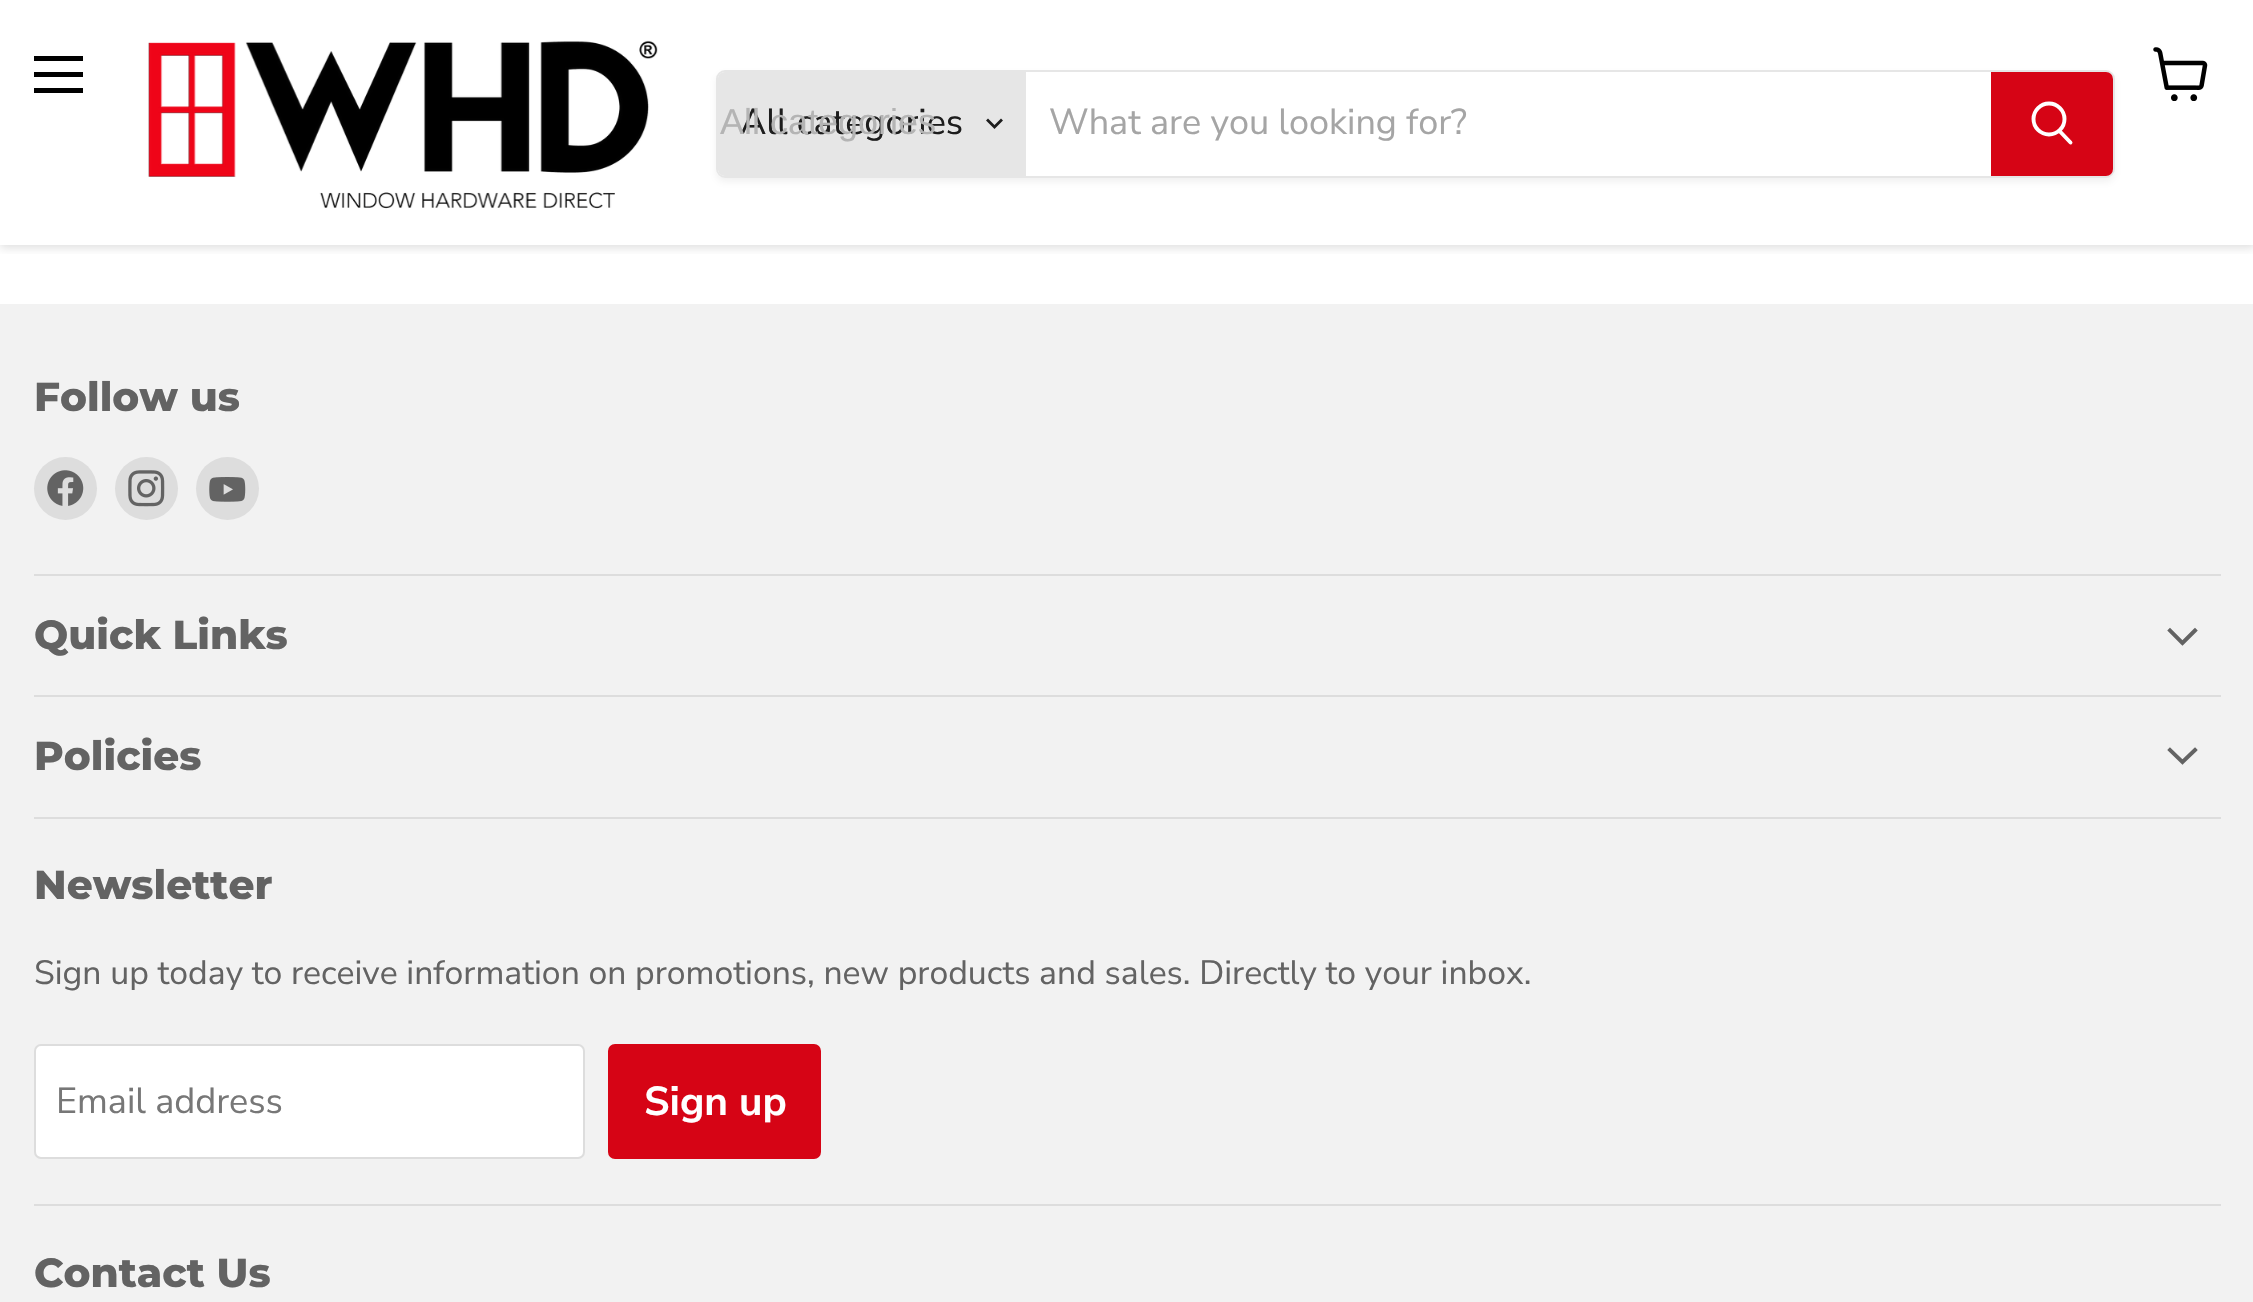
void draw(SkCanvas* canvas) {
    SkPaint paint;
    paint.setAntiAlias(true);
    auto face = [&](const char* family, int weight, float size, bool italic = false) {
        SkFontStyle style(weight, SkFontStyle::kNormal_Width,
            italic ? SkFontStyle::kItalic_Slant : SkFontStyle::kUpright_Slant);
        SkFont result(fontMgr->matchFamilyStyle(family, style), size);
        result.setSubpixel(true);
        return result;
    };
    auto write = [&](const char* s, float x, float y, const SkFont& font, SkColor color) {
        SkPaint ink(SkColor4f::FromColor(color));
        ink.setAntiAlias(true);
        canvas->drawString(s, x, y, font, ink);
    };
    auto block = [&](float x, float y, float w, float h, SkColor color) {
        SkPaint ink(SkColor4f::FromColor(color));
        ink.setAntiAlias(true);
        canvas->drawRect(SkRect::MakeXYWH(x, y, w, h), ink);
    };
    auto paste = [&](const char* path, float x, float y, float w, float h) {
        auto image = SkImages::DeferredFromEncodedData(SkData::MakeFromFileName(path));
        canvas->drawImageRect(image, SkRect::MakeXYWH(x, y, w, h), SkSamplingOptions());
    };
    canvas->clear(SK_ColorWHITE);
    canvas->save();
    canvas->clipRect(SkRect::MakeXYWH(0, 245, 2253, 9));
    paint.setColor(SkColorSetARGB(64, 128, 128, 128));
    paint.setMaskFilter(SkMaskFilter::MakeBlur(kNormal_SkBlurStyle, 4.5f));
    canvas->drawRect(SkRect::MakeXYWH(0, 2, 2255, 246), paint);
    paint.setMaskFilter(nullptr);
    canvas->restore();
    block(34, 56, 49, 5, SK_ColorBLACK);
    block(34, 72, 49, 5, SK_ColorBLACK);
    block(34, 88, 49, 5, SK_ColorBLACK);
    paste("pic1.png", 2153, 47, 55, 54);
    paste("pic2.png", 148, 40, 510, 169);
    canvas->save();
    canvas->clipPath(SkPathBuilder(SkPathFillType::kEvenOdd).moveTo(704, 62).lineTo(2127, 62).lineTo(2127, 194).lineTo(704, 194).close().moveTo(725, 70).lineTo(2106, 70).cubicTo(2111, 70, 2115, 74, 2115, 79).lineTo(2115, 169).cubicTo(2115, 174, 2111, 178, 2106, 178).lineTo(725, 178).cubicTo(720, 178, 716, 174, 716, 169).lineTo(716, 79).cubicTo(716, 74, 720, 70, 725, 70).close().detach(), true);
    paint.setColor(SkColorSetARGB(28, 128, 128, 128));
    paint.setMaskFilter(SkMaskFilter::MakeBlur(kNormal_SkBlurStyle, 3.5f));
    canvas->drawRoundRect(SkRect::MakeXYWH(716, 74, 1399, 108), 9, 9, paint);
    paint.setMaskFilter(nullptr);
    canvas->restore();
    paint.setStyle(SkPaint::kStroke_Style);
    paint.setStrokeWidth(2);
    paint.setColor(SkColorSetARGB(51, 128, 128, 128));
    canvas->drawRoundRect(SkRect::MakeXYWH(717, 71, 1397, 106), 8, 8, paint);
    paint.setStyle(SkPaint::kFill_Style);
    paint.setColor(SkColorSetRGB(230, 230, 230));
    canvas->drawPath(SkPathBuilder().moveTo(725, 72).lineTo(1026, 72).lineTo(1026, 176).lineTo(725, 176).cubicTo(721, 176, 718, 173, 718, 169).lineTo(718, 79).cubicTo(718, 75, 721, 72, 725, 72).close().detach(), paint);
    auto kFont1 = face("Nunito Sans", 400, 36);
    write("All categories", 740, 134, kFont1, SkColorSetRGB(29, 29, 29));
    auto kFont2 = face("Liberation Sans", 400, 36);
    write("All categories", 720, 134, kFont2, SkColorSetRGB(180, 180, 180));
    paint.setStyle(SkPaint::kStroke_Style);
    paint.setStrokeWidth(2.8f);
    paint.setStrokeCap(SkPaint::kSquare_Cap);
    paint.setColor(SkColorSetRGB(29, 29, 29));
    canvas->drawPath(SkPathBuilder().moveTo(994.5f, 127).lineTo(1001, 120.5f).moveTo(994.5f, 127).lineTo(988, 120.5f).detach(), paint);
    write("What are you looking for?", 1049, 134, kFont1, SkColorSetRGB(165, 165, 165));
    paint.setStyle(SkPaint::kFill_Style);
    paint.setColor(SkColorSetRGB(214, 4, 21));
    canvas->drawPath(SkPathBuilder().moveTo(1992, 73).lineTo(2106, 73).cubicTo(2109.5f, 73, 2112, 75.5f, 2112, 79).lineTo(2112, 169).cubicTo(2112, 172.5f, 2109.5f, 175, 2106, 175).lineTo(1992, 175).close().detach(), paint);
    paint.setStyle(SkPaint::kStroke_Style);
    paint.setStrokeWidth(2);
    paint.setStrokeCap(SkPaint::kButt_Cap);
    canvas->drawPath(SkPathBuilder().moveTo(1992, 73).lineTo(2106, 73).cubicTo(2109.5f, 73, 2112, 75.5f, 2112, 79).lineTo(2112, 169).cubicTo(2112, 172.5f, 2109.5f, 175, 2106, 175).lineTo(1992, 175).close().detach(), paint);
    paint.setStrokeWidth(3.9f);
    paint.setStrokeCap(SkPaint::kRound_Cap);
    paint.setColor(SK_ColorWHITE);
    canvas->drawPath(SkPathBuilder().moveTo(2070.5f, 142.5f).lineTo(2060, 131.5f).detach(), paint);
    paint.setStrokeCap(SkPaint::kButt_Cap);
    canvas->drawCircle(2049, 119, 15.5f, paint);
    block(0, 304, 2253, 998, SkColorSetRGB(242, 242, 242));
    block(34, 574, 2187, 2, SkColorSetRGB(221, 221, 221));
    auto kFont3 = face("Montserrat", 800, 40.5f);
    write("Follow us", 34, 411, kFont3, SkColorSetRGB(99, 99, 99));
    paint.setStyle(SkPaint::kFill_Style);
    paint.setColor(SkColorSetRGB(221, 221, 221));
    canvas->drawCircle(65.5f, 488.5f, 31.5f, paint);
    paste("pic3.png", 47, 470, 37, 36);
    canvas->drawCircle(146.5f, 488.5f, 31.5f, paint);
    paste("pic4.png", 128, 470, 37, 37);
    canvas->drawCircle(227.5f, 488.5f, 31.5f, paint);
    paste("pic5.png", 209, 477, 37, 25);
    block(34, 695, 2187, 2, SkColorSetRGB(221, 221, 221));
    write("Quick Links", 34, 649, kFont3, SkColorSetRGB(99, 99, 99));
    paint.setStyle(SkPaint::kStroke_Style);
    paint.setStrokeCap(SkPaint::kSquare_Cap);
    paint.setColor(SkColorSetRGB(99, 99, 99));
    canvas->drawPath(SkPathBuilder().moveTo(2182.5f, 643).lineTo(2195, 630.5f).moveTo(2182.5f, 643).lineTo(2170, 630.5f).detach(), paint);
    block(34, 817, 2187, 2, SkColorSetRGB(221, 221, 221));
    write("Policies", 34, 770, kFont3, SkColorSetRGB(99, 99, 99));
    canvas->drawPath(SkPathBuilder().moveTo(2182.5f, 762).lineTo(2195, 750).moveTo(2182.5f, 762).lineTo(2170, 750).detach(), paint);
    block(34, 1204, 2187, 2, SkColorSetRGB(221, 221, 221));
    write("Newsletter", 34, 899, kFont3, SkColorSetRGB(99, 99, 99));
    auto kFont4 = face("Nunito Sans", 400, 33.75f);
    write("Sign up today to receive information on promotions, new products and sales. Directly to your inbox.", 34, 984, kFont4, SkColorSetRGB(99, 99, 99));
    paint.setStyle(SkPaint::kFill_Style);
    paint.setColor(SK_ColorWHITE);
    canvas->drawRoundRect(SkRect::MakeXYWH(35, 1045, 549, 113), 6, 6, paint);
    paint.setStyle(SkPaint::kStroke_Style);
    paint.setStrokeWidth(2);
    paint.setStrokeCap(SkPaint::kButt_Cap);
    paint.setColor(SkColorSetRGB(221, 221, 221));
    canvas->drawRoundRect(SkRect::MakeXYWH(35, 1045, 549, 113), 6, 6, paint);
    write("Email address", 56, 1113, kFont1, SkColorSetRGB(119, 119, 119));
    paint.setStyle(SkPaint::kFill_Style);
    paint.setColor(SkColorSetRGB(214, 4, 21));
    canvas->drawRoundRect(SkRect::MakeXYWH(609, 1045, 211, 113), 6, 6, paint);
    paint.setStyle(SkPaint::kStroke_Style);
    canvas->drawRoundRect(SkRect::MakeXYWH(609, 1045, 211, 113), 6, 6, paint);
    auto kFont5 = face("Nunito Sans", 700, 40.5f);
    write("Sign up", 644, 1115, kFont5, SK_ColorWHITE);
    write("Contact Us", 34, 1287, kFont3, SkColorSetRGB(99, 99, 99));
}
